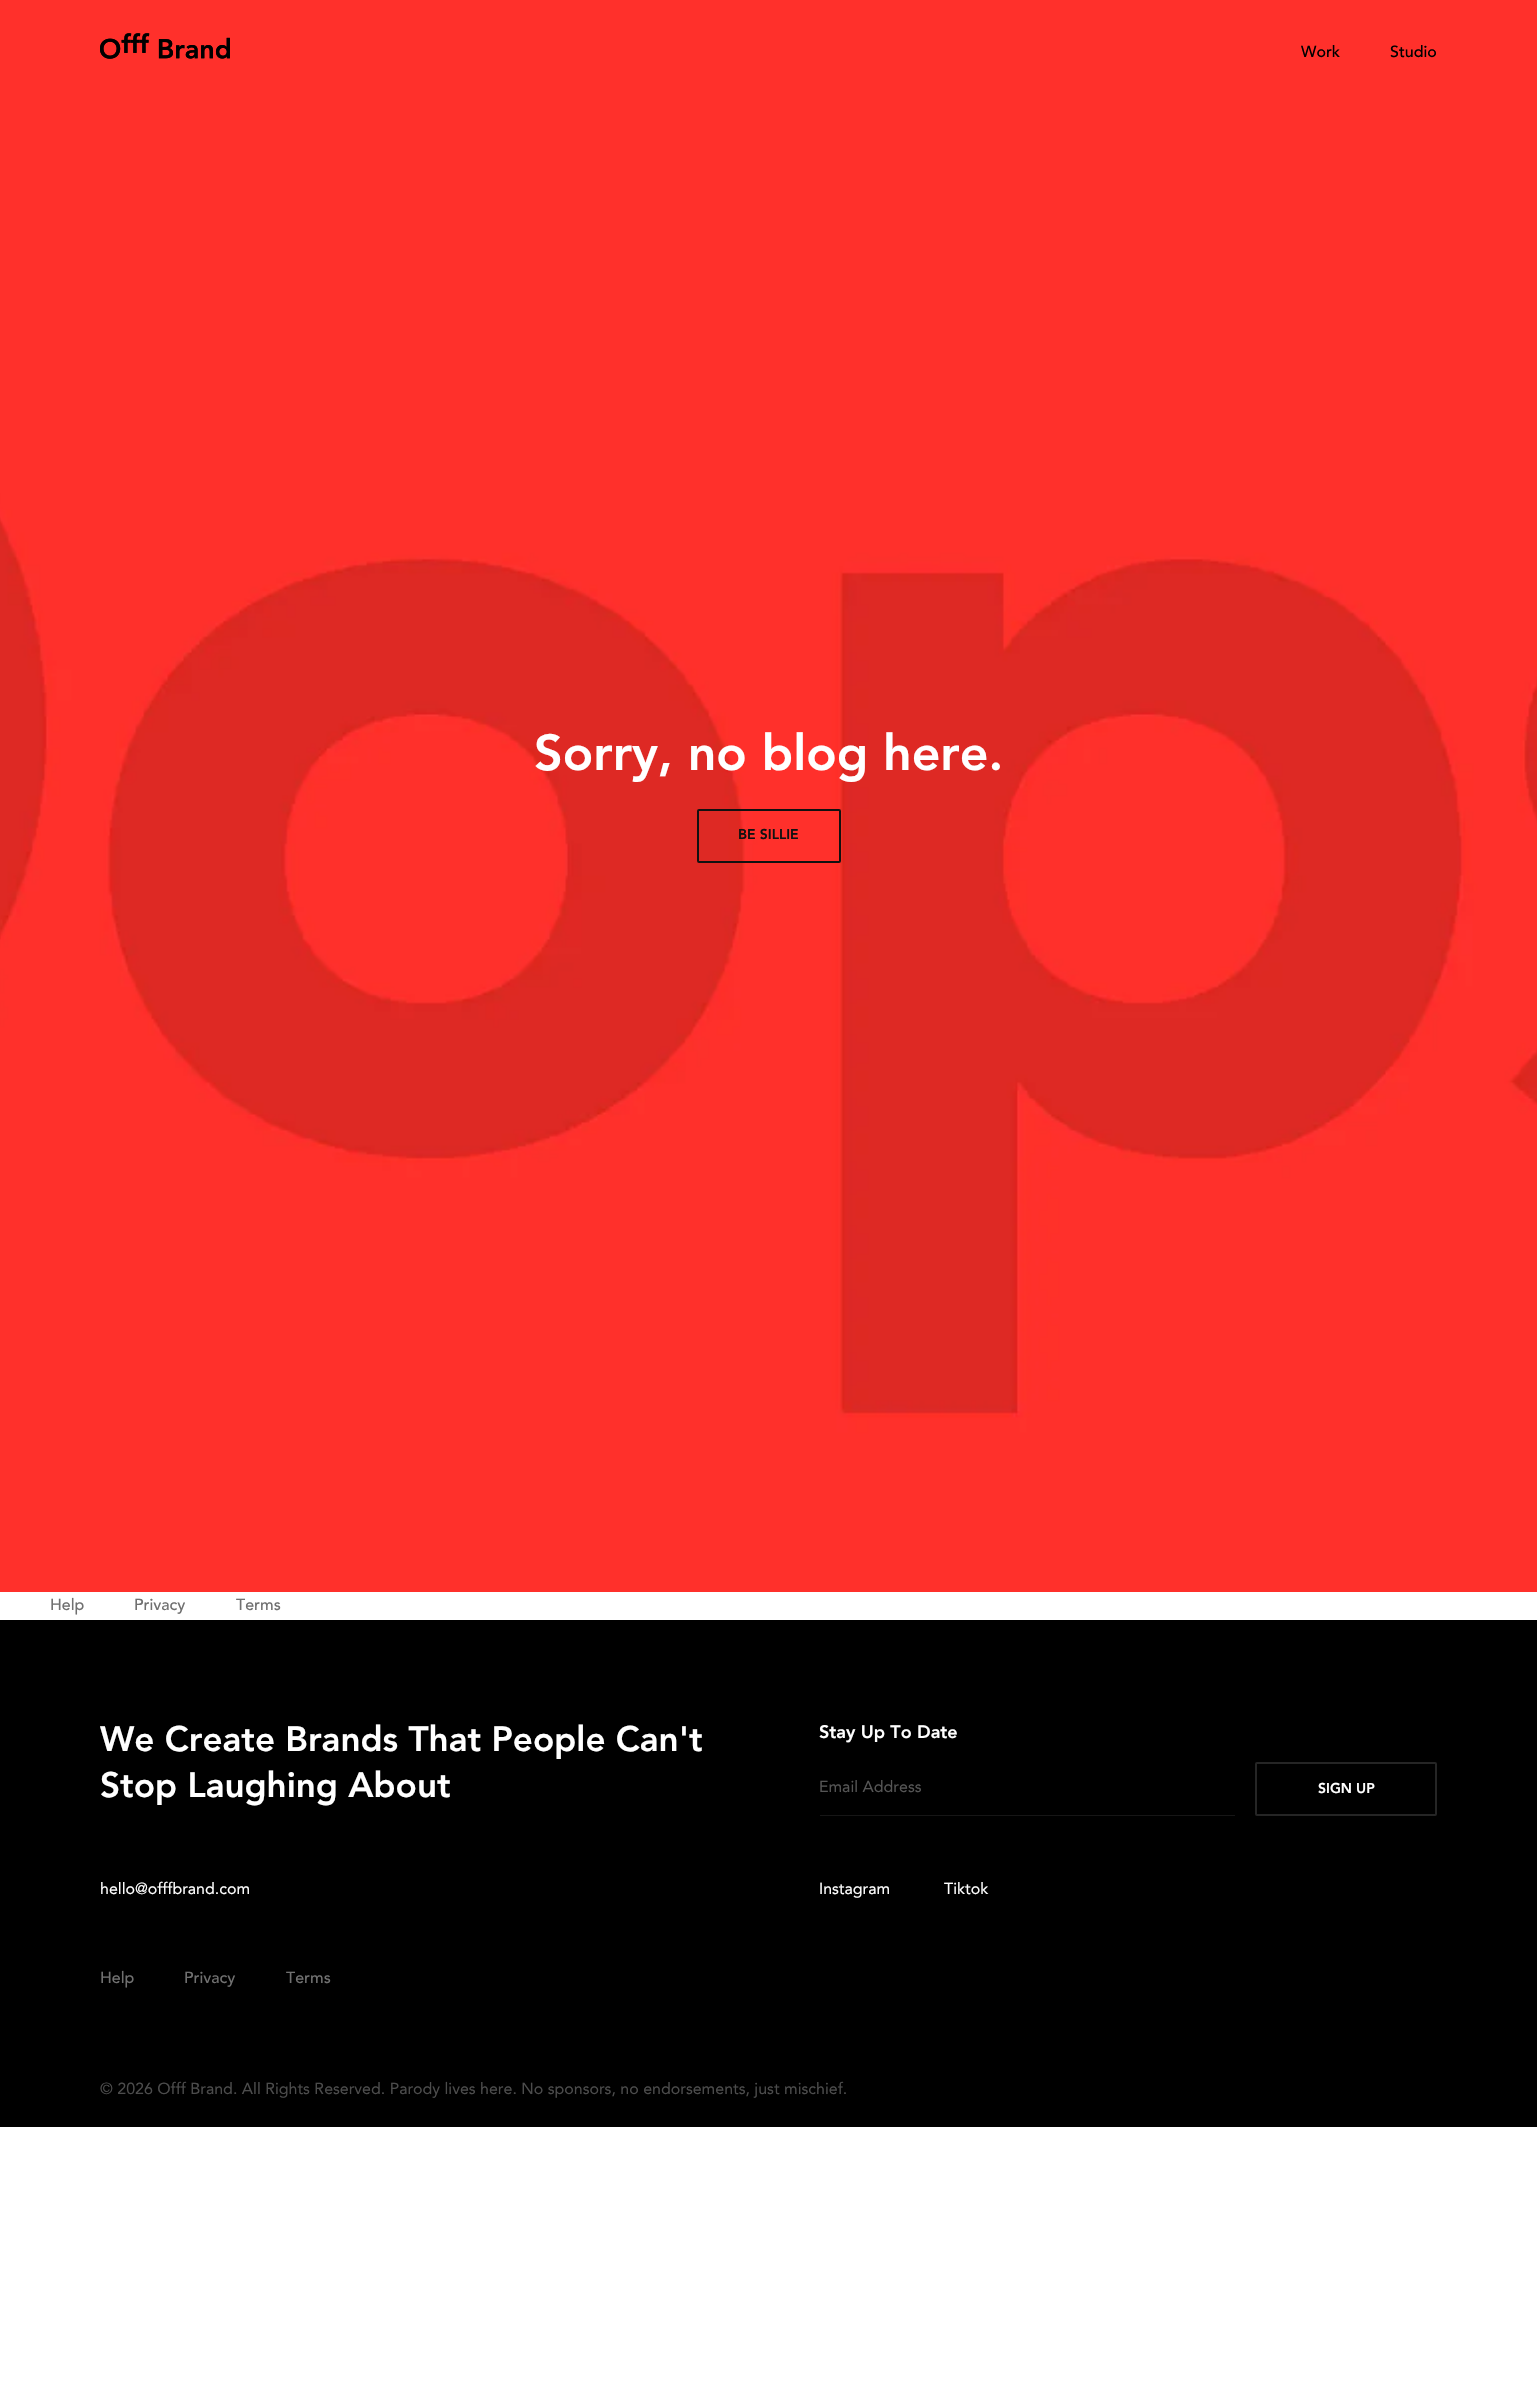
void draw(SkCanvas* canvas) {
    SkPaint paint;
    paint.setAntiAlias(true);
    auto face = [&](const char* family, int weight, float size, bool italic = false) {
        SkFontStyle style(weight, SkFontStyle::kNormal_Width,
            italic ? SkFontStyle::kItalic_Slant : SkFontStyle::kUpright_Slant);
        SkFont result(fontMgr->matchFamilyStyle(family, style), size);
        result.setSubpixel(true);
        return result;
    };
    auto write = [&](const char* s, float x, float y, const SkFont& font, SkColor color) {
        SkPaint ink(SkColor4f::FromColor(color));
        ink.setAntiAlias(true);
        canvas->drawString(s, x, y, font, ink);
    };
    auto block = [&](float x, float y, float w, float h, SkColor color) {
        SkPaint ink(SkColor4f::FromColor(color));
        ink.setAntiAlias(true);
        canvas->drawRect(SkRect::MakeXYWH(x, y, w, h), ink);
    };
    auto paste = [&](const char* path, float x, float y, float w, float h) {
        auto image = SkImages::DeferredFromEncodedData(SkData::MakeFromFileName(path));
        canvas->drawImageRect(image, SkRect::MakeXYWH(x, y, w, h), SkSamplingOptions());
    };
    canvas->clear(SK_ColorWHITE);
    paste("pic3.png", 0, 0, 1537, 1592);
    paste("pic1.png", 100, 33, 130, 26);
    auto kFont1 = face("Avenir", 500, 16);
    write("Work", 1301, 57, kFont1, SK_ColorBLACK);
    write("Studio", 1390, 57, kFont1, SK_ColorBLACK);
    paste("pic2.png", 100, 33, 130, 26);
    auto kFont2 = face("Avenir", 900, 50);
    write("Sorry, no blog here.", 534, 770, kFont2, SK_ColorWHITE);
    paint.setStyle(SkPaint::kStroke_Style);
    paint.setStrokeWidth(2);
    paint.setColor(SkColorSetRGB(17, 17, 17));
    canvas->drawRoundRect(SkRect::MakeXYWH(698, 810, 142, 52), 1, 1, paint);
    auto kFont3 = face("Avenir", 900, 14);
    write("BE SILLIE", 738, 839, kFont3, SkColorSetRGB(17, 17, 17));
    write("Help", 50, 1610, kFont1, SkColorSetRGB(112, 112, 112));
    write("Privacy", 134, 1610, kFont1, SkColorSetRGB(112, 112, 112));
    write("Terms", 236, 1610, kFont1, SkColorSetRGB(112, 112, 112));
    block(0, 1620, 1537, 507, SK_ColorBLACK);
    auto kFont4 = face("Avenir", 900, 35);
    write("We Create Brands That People Can't", 100, 1751, kFont4, SK_ColorWHITE);
    write("Stop Laughing About", 100, 1797, kFont4, SK_ColorWHITE);
    auto kFont5 = face("Avenir", 900, 18);
    write("Stay Up To Date", 819, 1738, kFont5, SK_ColorWHITE);
    block(820, 1815, 415, 1, SkColorSetRGB(22, 22, 22));
    auto kFont6 = face("Avenir", 400, 16);
    write("Email Address", 819, 1792, kFont6, SkColorSetRGB(85, 85, 85));
    paint.setColor(SkColorSetRGB(37, 37, 37));
    canvas->drawRoundRect(SkRect::MakeXYWH(1256, 1763, 180, 52), 1, 1, paint);
    write("SIGN UP", 1318, 1793, kFont3, SK_ColorWHITE);
    write("hello@offfbrand.com", 100, 1894, kFont6, SK_ColorWHITE);
    write("Instagram", 819, 1894, kFont6, SK_ColorWHITE);
    write("Tiktok", 944, 1894, kFont6, SK_ColorWHITE);
    write("Help", 100, 1983, kFont1, SkColorSetRGB(112, 112, 112));
    write("Privacy", 184, 1983, kFont1, SkColorSetRGB(112, 112, 112));
    write("Terms", 286, 1983, kFont1, SkColorSetRGB(112, 112, 112));
    write("© 2026 Offf Brand. All Rights Reserved. Parody lives here. No sponsors, no endorsements, just mischief.", 100, 2094, kFont6, SkColorSetRGB(76, 76, 76));
}
